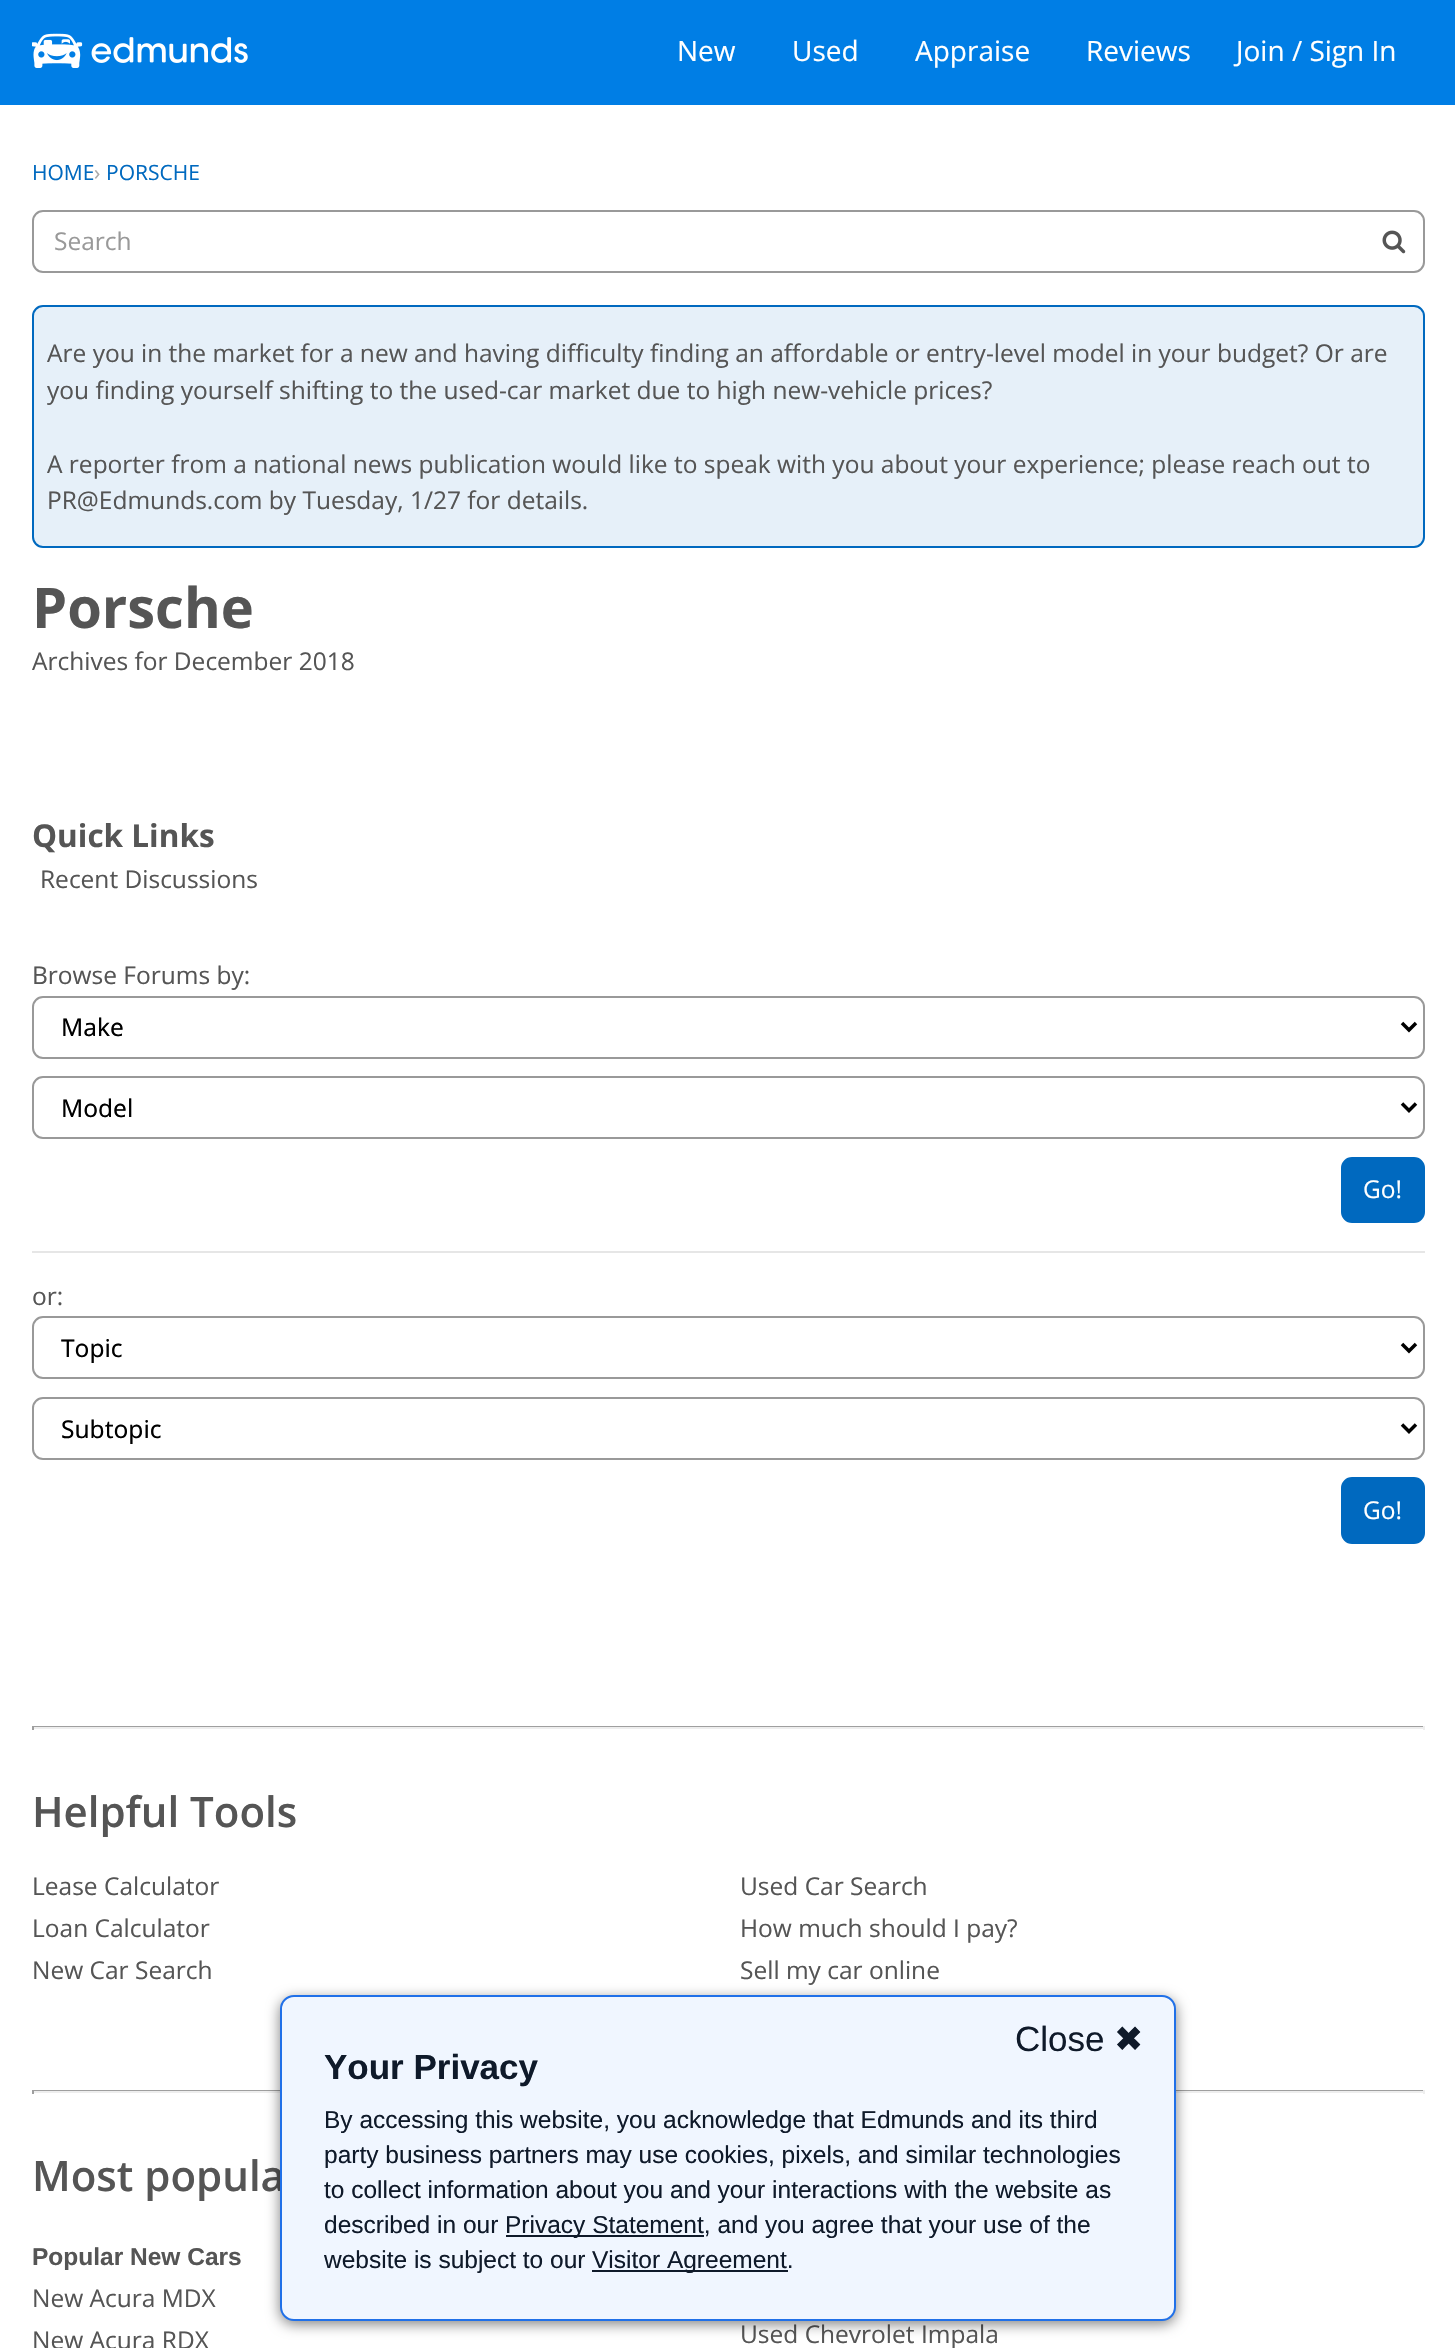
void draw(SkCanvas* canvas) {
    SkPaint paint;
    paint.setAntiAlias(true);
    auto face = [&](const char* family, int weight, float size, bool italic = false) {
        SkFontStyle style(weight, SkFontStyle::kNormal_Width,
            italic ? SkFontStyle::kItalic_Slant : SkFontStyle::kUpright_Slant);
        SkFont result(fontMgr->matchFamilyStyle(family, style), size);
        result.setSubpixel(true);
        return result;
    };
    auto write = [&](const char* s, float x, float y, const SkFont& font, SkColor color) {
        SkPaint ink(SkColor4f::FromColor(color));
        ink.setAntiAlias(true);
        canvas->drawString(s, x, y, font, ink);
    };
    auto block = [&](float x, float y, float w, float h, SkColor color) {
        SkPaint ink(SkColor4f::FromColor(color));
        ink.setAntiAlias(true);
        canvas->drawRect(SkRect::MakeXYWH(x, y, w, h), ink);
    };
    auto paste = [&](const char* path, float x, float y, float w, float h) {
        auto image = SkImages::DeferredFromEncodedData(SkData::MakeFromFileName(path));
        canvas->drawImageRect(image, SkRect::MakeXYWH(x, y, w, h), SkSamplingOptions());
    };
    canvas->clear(SK_ColorWHITE);
    block(0, 0, 1455, 105, SkColorSetRGB(0, 126, 229));
    paste("pic1.png", 32, 33, 216, 35);
    auto kFont1 = face("Open Sans", 400, 28);
    write("New", 677, 61, kFont1, SK_ColorWHITE);
    write("Used", 792, 61, kFont1, SK_ColorWHITE);
    write("Appraise", 915, 61, kFont1, SK_ColorWHITE);
    write("Reviews", 1086, 61, kFont1, SK_ColorWHITE);
    write("Join / Sign In", 1236, 61, kFont1, SK_ColorWHITE);
    auto kFont2 = face("Open Sans", 400, 21);
    write("HOME", 32, 180, kFont2, SkColorSetRGB(0, 105, 191));
    write("›", 94, 180, kFont2, SkColorSetRGB(170, 170, 170));
    write("PORSCHE", 106, 180, kFont2, SkColorSetRGB(0, 105, 191));
    paint.setStyle(SkPaint::kStroke_Style);
    paint.setStrokeWidth(2);
    paint.setColor(SkColorSetRGB(153, 153, 153));
    canvas->drawRoundRect(SkRect::MakeXYWH(33, 211, 1391, 61), 10, 10, paint);
    auto kFont3 = face("Open Sans", 400, 24.5f);
    write("Search", 54, 250, kFont3, SkColorSetRGB(153, 153, 153));
    paste("pic2.png", 1382, 230, 24, 24);
    paint.setStyle(SkPaint::kFill_Style);
    paint.setColor(SkColorSetRGB(230, 240, 249));
    canvas->drawRoundRect(SkRect::MakeXYWH(33, 306, 1391, 241), 10, 10, paint);
    paint.setStyle(SkPaint::kStroke_Style);
    paint.setColor(SkColorSetRGB(0, 105, 191));
    canvas->drawRoundRect(SkRect::MakeXYWH(33, 306, 1391, 241), 10, 10, paint);
    write("Are you in the market for a new and having difficulty finding an affordable or entry-level model in your budget? Or are", 47, 362, kFont3, SkColorSetRGB(85, 85, 85));
    write("you finding yourself shifting to the used-car market due to high new-vehicle prices?", 47, 399, kFont3, SkColorSetRGB(85, 85, 85));
    write("A reporter from a national news publication would like to speak with you about your experience; please reach out to", 47, 473, kFont3, SkColorSetRGB(85, 85, 85));
    write("PR@Edmunds.com by Tuesday, 1/27 for details.", 47, 509, kFont3, SkColorSetRGB(85, 85, 85));
    auto kFont4 = face("Open Sans", 700, 56);
    write("Porsche", 32, 628, kFont4, SkColorSetRGB(85, 85, 85));
    write("Archives for December 2018", 32, 670, kFont3, SkColorSetRGB(85, 85, 85));
    auto kFont5 = face("Open Sans", 700, 31.5f);
    write("Quick Links", 32, 847, kFont5, SkColorSetRGB(85, 85, 85));
    write("Recent Discussions", 40, 888, kFont3, SkColorSetRGB(85, 85, 85));
    write("Browse Forums by:", 32, 984, kFont3, SkColorSetRGB(85, 85, 85));
    paint.setColor(SkColorSetRGB(153, 153, 153));
    canvas->drawRoundRect(SkRect::MakeXYWH(33, 997, 1391, 61), 10, 10, paint);
    paint.setStrokeWidth(3.5f);
    paint.setColor(SK_ColorBLACK);
    canvas->drawPath(SkPathBuilder().moveTo(1402, 1023).lineTo(1409, 1030).lineTo(1416, 1023).detach(), paint);
    auto kFont6 = face("Noto Sans", 400, 24.5f);
    write("Make", 61, 1036, kFont6, SK_ColorBLACK);
    paint.setStrokeWidth(2);
    paint.setColor(SkColorSetRGB(153, 153, 153));
    canvas->drawRoundRect(SkRect::MakeXYWH(33, 1077, 1391, 61), 10, 10, paint);
    paint.setStrokeWidth(3.5f);
    paint.setColor(SK_ColorBLACK);
    canvas->drawPath(SkPathBuilder().moveTo(1402, 1103.5f).lineTo(1409, 1110.5f).lineTo(1416, 1103.5f).detach(), paint);
    write("Model", 61, 1117, kFont6, SK_ColorBLACK);
    paint.setStyle(SkPaint::kFill_Style);
    paint.setColor(SkColorSetRGB(0, 105, 191));
    canvas->drawRoundRect(SkRect::MakeXYWH(1342, 1158, 82, 64), 10, 10, paint);
    paint.setStyle(SkPaint::kStroke_Style);
    paint.setStrokeWidth(2);
    canvas->drawRoundRect(SkRect::MakeXYWH(1342, 1158, 82, 64), 10, 10, paint);
    write("Go!", 1363, 1198, kFont3, SK_ColorWHITE);
    block(32, 1251, 1393, 2, SkColorSetRGB(230, 230, 230));
    write("or:", 32, 1305, kFont3, SkColorSetRGB(85, 85, 85));
    paint.setColor(SkColorSetRGB(153, 153, 153));
    canvas->drawRoundRect(SkRect::MakeXYWH(33, 1317, 1391, 61), 10, 10, paint);
    paint.setStrokeWidth(3.5f);
    paint.setColor(SK_ColorBLACK);
    canvas->drawPath(SkPathBuilder().moveTo(1402, 1344).lineTo(1409, 1351).lineTo(1416, 1344).detach(), paint);
    write("Topic", 61, 1357, kFont6, SK_ColorBLACK);
    paint.setStrokeWidth(2);
    paint.setColor(SkColorSetRGB(153, 153, 153));
    canvas->drawRoundRect(SkRect::MakeXYWH(33, 1398, 1391, 61), 10, 10, paint);
    paint.setStrokeWidth(3.5f);
    paint.setColor(SK_ColorBLACK);
    canvas->drawPath(SkPathBuilder().moveTo(1402, 1424.5f).lineTo(1409, 1431.5f).lineTo(1416, 1424.5f).detach(), paint);
    write("Subtopic", 61, 1438, kFont6, SK_ColorBLACK);
    paint.setStyle(SkPaint::kFill_Style);
    paint.setColor(SkColorSetRGB(0, 105, 191));
    canvas->drawRoundRect(SkRect::MakeXYWH(1342, 1478, 82, 65), 10, 10, paint);
    paint.setStyle(SkPaint::kStroke_Style);
    paint.setStrokeWidth(2);
    canvas->drawRoundRect(SkRect::MakeXYWH(1342, 1478, 82, 65), 10, 10, paint);
    write("Go!", 1363, 1519, kFont3, SK_ColorWHITE);
    block(32, 1726, 1393, 1, SkColorSetRGB(159, 159, 159));
    block(1423, 1726, 2, 4, SkColorSetRGB(238, 238, 238));
    block(32, 1727, 1393, 2, SkColorSetRGB(238, 238, 238));
    block(32, 1726, 2, 4, SkColorSetRGB(159, 159, 159));
    auto kFont7 = face("Open Sans", 600, 42);
    write("Helpful Tools", 32, 1827, kFont7, SkColorSetRGB(85, 85, 85));
    write("Lease Calculator", 32, 1895, kFont3, SkColorSetRGB(85, 85, 85));
    write("Used Car Search", 740, 1895, kFont3, SkColorSetRGB(85, 85, 85));
    write("Loan Calculator", 32, 1937, kFont3, SkColorSetRGB(85, 85, 85));
    write("How much should I pay?", 740, 1937, kFont3, SkColorSetRGB(85, 85, 85));
    write("New Car Search", 32, 1979, kFont3, SkColorSetRGB(85, 85, 85));
    write("Sell my car online", 740, 1979, kFont3, SkColorSetRGB(85, 85, 85));
    block(32, 2090, 1393, 1, SkColorSetRGB(159, 159, 159));
    block(1423, 2090, 2, 4, SkColorSetRGB(238, 238, 238));
    block(32, 2091, 1393, 2, SkColorSetRGB(238, 238, 238));
    block(32, 2090, 2, 4, SkColorSetRGB(159, 159, 159));
    write("Most popula", 32, 2191, kFont7, SkColorSetRGB(85, 85, 85));
    auto kFont8 = face("Liberation Sans", 700, 24.5f);
    write("Popular New Cars", 32, 2265, kFont8, SkColorSetRGB(85, 85, 85));
    write("New Acura MDX", 32, 2307, kFont3, SkColorSetRGB(85, 85, 85));
    write("New Acura RDX", 32, 2349, kFont3, SkColorSetRGB(85, 85, 85));
    write("Used Chevrolet Impala", 740, 2343, kFont3, SkColorSetRGB(85, 85, 85));
    paint.setStyle(SkPaint::kFill_Style);
    paint.setColor(SkColorSetARGB(128, 0, 0, 0));
    paint.setMaskFilter(SkMaskFilter::MakeBlur(kNormal_SkBlurStyle, 7));
    canvas->drawRoundRect(SkRect::MakeXYWH(280, 1999, 896, 325), 14, 14, paint);
    paint.setMaskFilter(nullptr);
    paint.setColor(SkColorSetRGB(240, 246, 255));
    canvas->drawRoundRect(SkRect::MakeXYWH(281, 1996, 894, 324), 13, 13, paint);
    paint.setStyle(SkPaint::kStroke_Style);
    paint.setColor(SkColorSetRGB(32, 112, 232));
    canvas->drawRoundRect(SkRect::MakeXYWH(281, 1996, 894, 324), 13, 13, paint);
    auto kFont9 = face("Liberation Sans", 400, 35);
    write("Close", 1015, 2051, kFont9, SkColorSetRGB(15, 26, 42));
    auto kFont10 = face("DejaVu Sans", 400, 35);
    write("✖", 1114, 2051, kFont10, SkColorSetRGB(15, 26, 42));
    auto kFont11 = face("Liberation Sans", 700, 35);
    write("Your Privacy", 324, 2079, kFont11, SkColorSetRGB(15, 26, 42));
    auto kFont12 = face("Liberation Sans", 400, 24.5f);
    write("By accessing this website, you acknowledge that Edmunds and its third", 324, 2128, kFont12, SkColorSetRGB(15, 26, 42));
    write("party business partners may use cookies, pixels, and similar technologies", 324, 2163, kFont12, SkColorSetRGB(15, 26, 42));
    write("to collect information about you and your interactions with the website as", 324, 2198, kFont12, SkColorSetRGB(15, 26, 42));
    write("described in our", 324, 2233, kFont12, SkColorSetRGB(15, 26, 42));
    block(506, 2235, 198, 2, SkColorSetRGB(15, 26, 42));
    write("Privacy Statement, and you agree that your use of the", 505, 2233, kFont12, SkColorSetRGB(15, 26, 42));
    write("website is subject to our", 324, 2268, kFont12, SkColorSetRGB(15, 26, 42));
    block(592, 2270, 196, 2, SkColorSetRGB(15, 26, 42));
    write("Visitor Agreement.", 592, 2268, kFont12, SkColorSetRGB(15, 26, 42));
}
